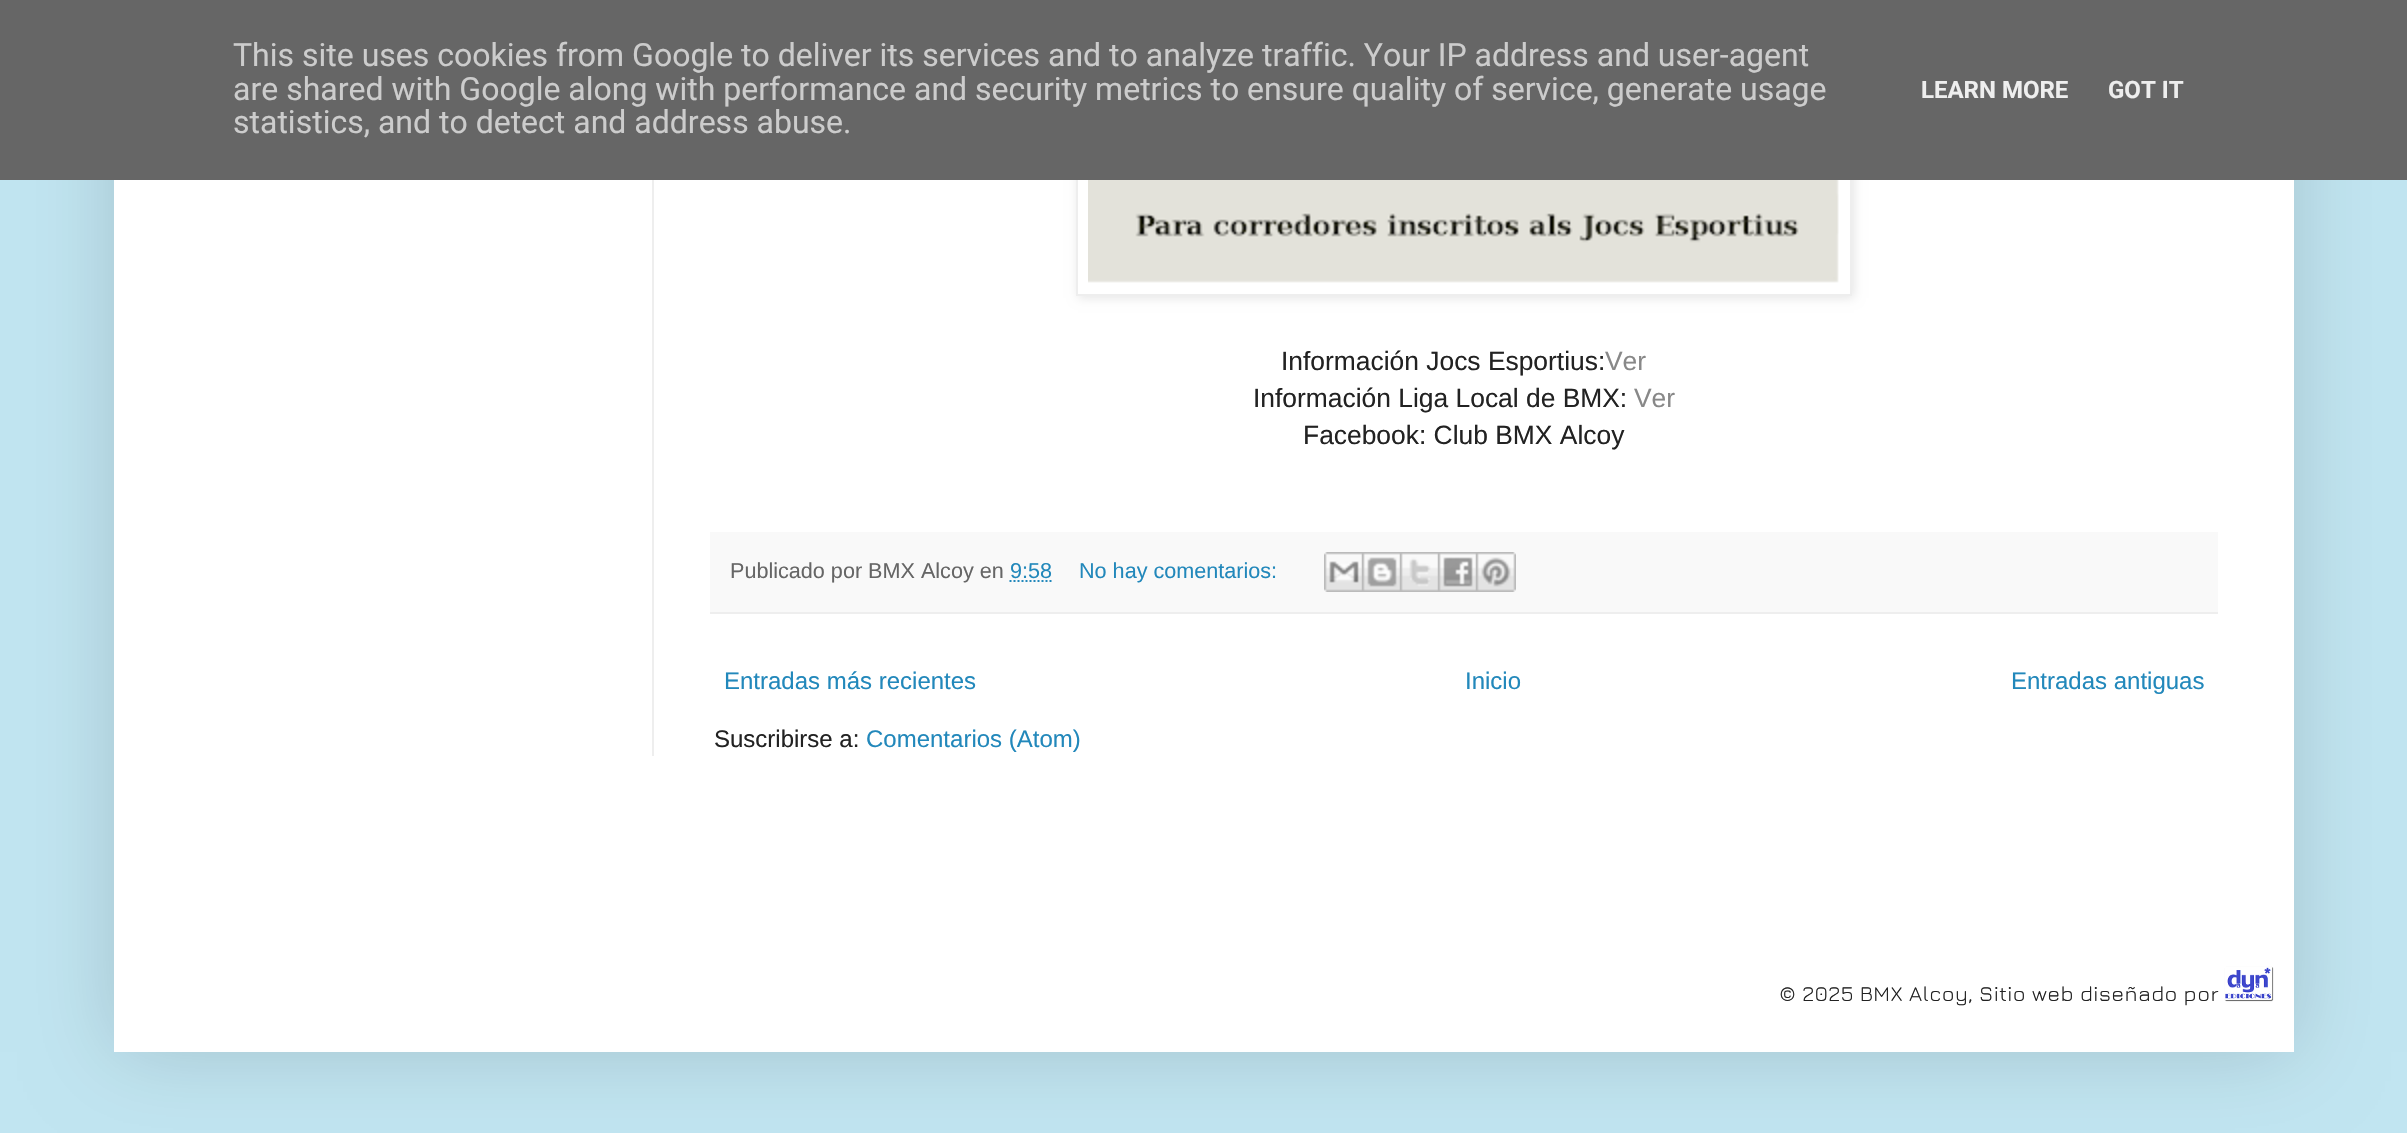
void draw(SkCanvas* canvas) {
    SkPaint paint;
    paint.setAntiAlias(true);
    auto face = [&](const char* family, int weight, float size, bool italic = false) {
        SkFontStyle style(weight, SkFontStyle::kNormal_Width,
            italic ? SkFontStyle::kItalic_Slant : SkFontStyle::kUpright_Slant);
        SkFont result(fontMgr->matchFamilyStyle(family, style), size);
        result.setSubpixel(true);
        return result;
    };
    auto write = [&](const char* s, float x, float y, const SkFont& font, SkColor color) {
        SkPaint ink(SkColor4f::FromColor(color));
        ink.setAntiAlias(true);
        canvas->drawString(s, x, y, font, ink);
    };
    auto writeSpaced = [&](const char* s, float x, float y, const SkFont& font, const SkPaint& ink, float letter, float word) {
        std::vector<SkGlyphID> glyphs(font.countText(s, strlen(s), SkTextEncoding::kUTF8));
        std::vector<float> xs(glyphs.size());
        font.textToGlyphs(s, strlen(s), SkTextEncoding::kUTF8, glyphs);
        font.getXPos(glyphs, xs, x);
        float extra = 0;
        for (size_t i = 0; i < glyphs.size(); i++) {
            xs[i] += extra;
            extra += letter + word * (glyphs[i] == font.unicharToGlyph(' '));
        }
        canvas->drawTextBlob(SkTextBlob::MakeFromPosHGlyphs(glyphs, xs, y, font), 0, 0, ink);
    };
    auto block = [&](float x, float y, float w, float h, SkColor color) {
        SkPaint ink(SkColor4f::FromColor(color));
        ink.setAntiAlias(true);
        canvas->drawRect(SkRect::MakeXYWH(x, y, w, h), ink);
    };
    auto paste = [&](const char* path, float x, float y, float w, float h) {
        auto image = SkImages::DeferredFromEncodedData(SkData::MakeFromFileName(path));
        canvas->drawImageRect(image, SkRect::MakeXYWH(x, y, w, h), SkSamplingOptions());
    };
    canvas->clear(SkColorSetRGB(193, 229, 241));
    paint.setColor(SkColorSetARGB(38, 0, 0, 0));
    paint.setMaskFilter(SkMaskFilter::MakeBlur(kNormal_SkBlurStyle, 40));
    canvas->drawRect(SkRect::MakeXYWH(114, -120, 2180, 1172), paint);
    paint.setMaskFilter(nullptr);
    block(114, 180, 2180, 872, SK_ColorWHITE);
    canvas->save();
    canvas->clipPath(SkPathBuilder(SkPathFillType::kEvenOdd).moveTo(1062, 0).lineTo(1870, 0).lineTo(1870, 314).lineTo(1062, 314).close().moveTo(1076, -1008).lineTo(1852, -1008).lineTo(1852, 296).lineTo(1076, 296).close().detach(), true);
    paint.setColor(SkColorSetARGB(26, 0, 0, 0));
    paint.setMaskFilter(SkMaskFilter::MakeBlur(kNormal_SkBlurStyle, 5));
    canvas->drawRect(SkRect::MakeXYWH(1078, -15, 776, 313), paint);
    paint.setMaskFilter(nullptr);
    canvas->restore();
    paint.setStyle(SkPaint::kStroke_Style);
    paint.setStrokeWidth(2);
    paint.setColor(SkColorSetRGB(238, 238, 238));
    canvas->drawRect(SkRect::MakeXYWH(1077, -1, 774, 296), paint);
    block(0, 0, 2407, 180, SkColorSetRGB(102, 102, 102));
    auto kFont1 = face("Roboto", 400, 32);
    write("This site uses cookies from Google to deliver its services and to analyze traffic. Your IP address and user-agent", 233, 66, kFont1, SkColorSetRGB(204, 204, 204));
    write("are shared with Google along with performance and security metrics to ensure quality of service, generate usage", 233, 100, kFont1, SkColorSetRGB(204, 204, 204));
    write("statistics, and to detect and address abuse.", 233, 133, kFont1, SkColorSetRGB(204, 204, 204));
    auto kFont2 = face("Roboto", 700, 24);
    write("LEARN MORE", 1921, 98, kFont2, SkColorSetRGB(238, 238, 238));
    write("GOT IT", 2108, 98, kFont2, SkColorSetRGB(238, 238, 238));
    block(652, 180, 2, 576, SkColorSetRGB(238, 238, 238));
    paste("pic1.png", 1088, 180, 751, 103);
    auto kFont3 = face("Liberation Sans", 400, 26.4f);
    write("Información Jocs Esportius:", 1281, 370, kFont3, SkColorSetRGB(34, 34, 34));
    write("Ver", 1605, 370, kFont3, SkColorSetRGB(136, 136, 136));
    write("Información Liga Local de BMX:", 1253, 407, kFont3, SkColorSetRGB(34, 34, 34));
    write("Ver", 1634, 407, kFont3, SkColorSetRGB(136, 136, 136));
    write("Facebook: Club BMX Alcoy", 1303, 444, kFont3, SkColorSetRGB(34, 34, 34));
    block(710, 532, 1508, 80, SkColorSetRGB(249, 249, 249));
    block(710, 612, 1508, 2, SkColorSetRGB(238, 238, 238));
    auto kFont4 = face("Liberation Sans", 400, 21.6f);
    write("Publicado por BMX Alcoy en", 730, 578, kFont4, SkColorSetRGB(102, 102, 102));
    write("9:58", 1010, 578, kFont4, SkColorSetRGB(34, 136, 187));
    paint.setColor(SkColorSetRGB(34, 136, 187));
    paint.setPathEffect(SkDashPathEffect::Make({{2, 2}}, 0));
    canvas->drawPath(SkPathBuilder().moveTo(1009.5f, 581).lineTo(1052, 581).detach(), paint);
    paint.setPathEffect(nullptr);
    write("No hay comentarios:", 1079, 578, kFont4, SkColorSetRGB(34, 136, 187));
    paste("pic2.png", 1324, 552, 38, 40);
    paste("pic3.png", 1362, 552, 38, 40);
    paste("pic4.png", 1400, 552, 38, 40);
    paste("pic5.png", 1438, 552, 38, 40);
    paste("pic6.png", 1476, 552, 40, 40);
    auto kFont5 = face("Liberation Sans", 400, 24);
    write("Entradas más recientes", 724, 689, kFont5, SkColorSetRGB(34, 136, 187));
    write("Inicio", 1465, 689, kFont5, SkColorSetRGB(34, 136, 187));
    write("Entradas antiguas", 2011, 689, kFont5, SkColorSetRGB(34, 136, 187));
    write("Suscribirse a:", 714, 747, kFont5, SkColorSetRGB(34, 34, 34));
    write("Comentarios (Atom)", 866, 747, kFont5, SkColorSetRGB(34, 136, 187));
    auto kFont6 = face("Jura", 400, 21.3f);
    paint.setStyle(SkPaint::kFill_Style);
    paint.setColor(SkColorSetRGB(34, 34, 34));
    writeSpaced("© 2025 BMX Alcoy, Sitio web diseñado por", 1779, 1001, kFont6, paint, 0.45f, 0);
    paste("pic7.png", 2224, 966, 50, 36);
}
